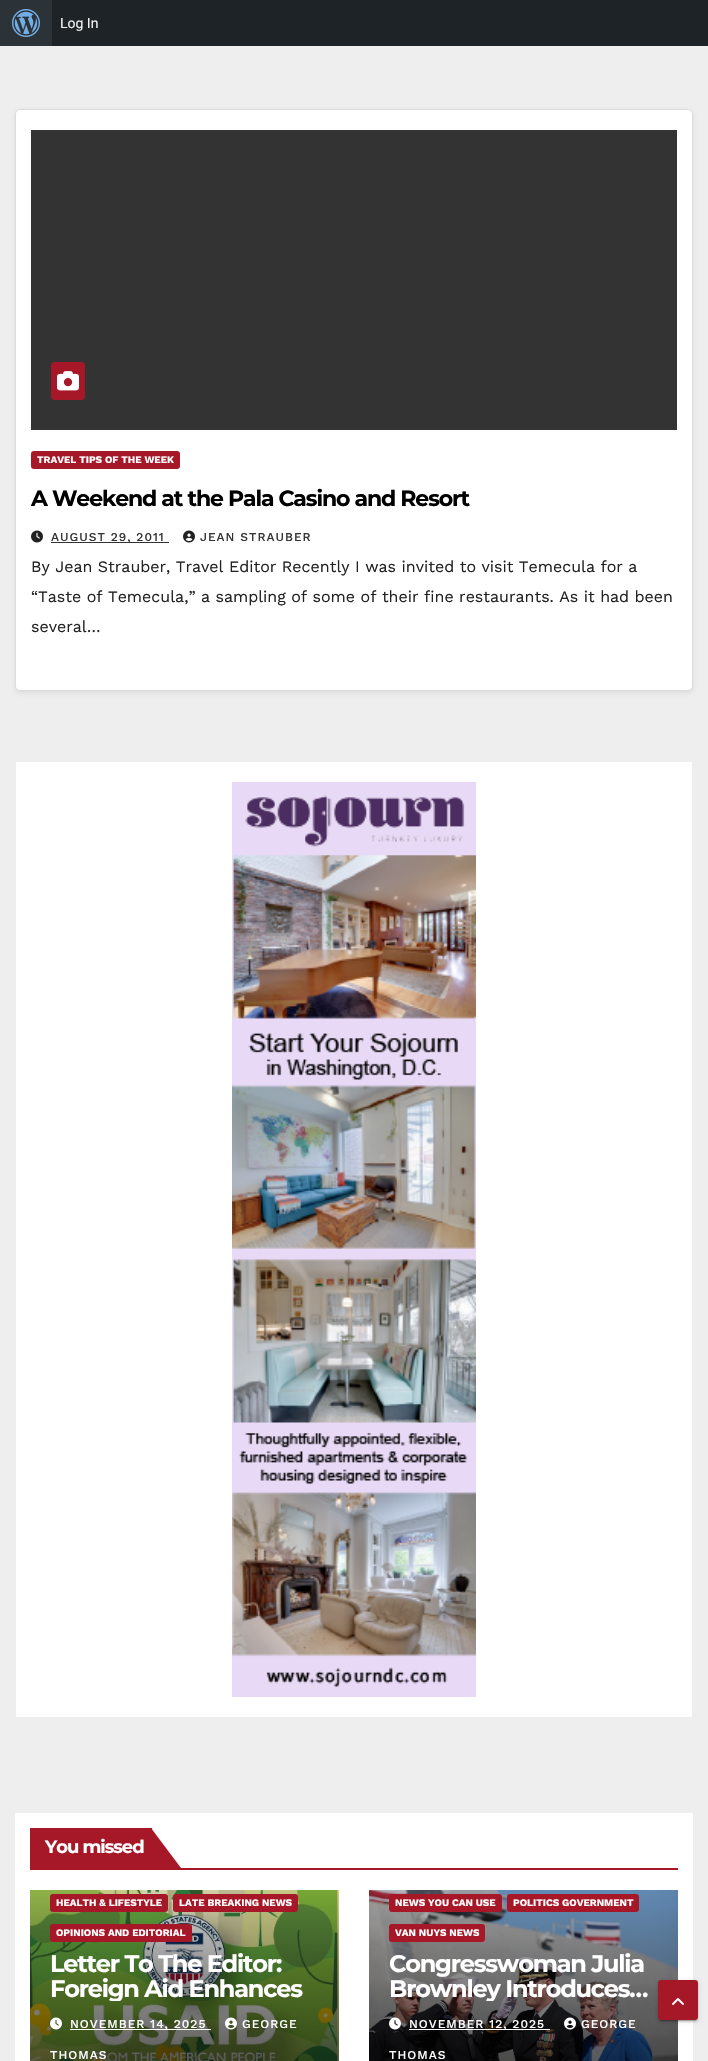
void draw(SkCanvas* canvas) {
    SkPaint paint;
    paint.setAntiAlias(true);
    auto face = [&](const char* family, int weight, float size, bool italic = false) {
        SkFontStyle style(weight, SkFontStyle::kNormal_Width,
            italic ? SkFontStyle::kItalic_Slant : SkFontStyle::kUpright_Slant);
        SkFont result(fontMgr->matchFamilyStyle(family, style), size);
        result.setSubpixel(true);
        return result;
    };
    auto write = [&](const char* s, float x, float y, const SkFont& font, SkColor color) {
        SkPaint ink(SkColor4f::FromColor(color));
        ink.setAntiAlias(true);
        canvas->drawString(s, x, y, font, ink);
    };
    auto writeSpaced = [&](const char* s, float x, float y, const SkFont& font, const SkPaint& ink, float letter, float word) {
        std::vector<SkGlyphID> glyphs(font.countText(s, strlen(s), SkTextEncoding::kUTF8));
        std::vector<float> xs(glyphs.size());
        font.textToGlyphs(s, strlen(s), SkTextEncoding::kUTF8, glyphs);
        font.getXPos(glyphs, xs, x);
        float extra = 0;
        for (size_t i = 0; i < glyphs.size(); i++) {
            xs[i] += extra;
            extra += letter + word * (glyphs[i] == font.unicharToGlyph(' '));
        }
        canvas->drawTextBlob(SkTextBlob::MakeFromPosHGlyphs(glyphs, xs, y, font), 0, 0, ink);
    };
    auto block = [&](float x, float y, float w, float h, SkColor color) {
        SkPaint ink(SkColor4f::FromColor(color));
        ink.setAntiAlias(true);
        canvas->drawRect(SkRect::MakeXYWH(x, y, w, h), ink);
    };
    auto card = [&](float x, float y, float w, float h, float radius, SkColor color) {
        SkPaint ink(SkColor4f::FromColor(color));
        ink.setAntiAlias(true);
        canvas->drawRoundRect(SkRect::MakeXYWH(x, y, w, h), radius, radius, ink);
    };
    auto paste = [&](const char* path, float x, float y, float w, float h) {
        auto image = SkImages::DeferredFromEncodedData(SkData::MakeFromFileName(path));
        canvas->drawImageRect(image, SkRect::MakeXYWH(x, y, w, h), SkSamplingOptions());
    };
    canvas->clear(SkColorSetRGB(238, 238, 238));
    block(52, 0, 656, 46, SkColorSetRGB(29, 35, 39));
    block(0, 0, 52, 46, SkColorSetRGB(44, 51, 56));
    paste("pic1.png", 12, 9, 28, 28);
    auto kFont1 = face("Roboto", 400, 14);
    write("Log In", 60, 28, kFont1, SkColorSetRGB(240, 240, 241));
    paint.setColor(SkColorSetARGB(20, 0, 0, 0));
    paint.setMaskFilter(SkMaskFilter::MakeBlur(kNormal_SkBlurStyle, 2));
    canvas->drawRoundRect(SkRect::MakeXYWH(15, 111, 678, 582), 5, 5, paint);
    paint.setMaskFilter(nullptr);
    paint.setColor(SK_ColorWHITE);
    canvas->drawRoundRect(SkRect::MakeXYWH(15.5f, 109.5f, 677, 581), 4.5f, 4.5f, paint);
    paint.setStyle(SkPaint::kStroke_Style);
    paint.setStrokeWidth(1);
    paint.setColor(SkColorSetRGB(221, 220, 220));
    canvas->drawRoundRect(SkRect::MakeXYWH(15.5f, 109.5f, 677, 581), 4.5f, 4.5f, paint);
    block(31, 130, 646, 300, SkColorSetRGB(51, 51, 51));
    card(51, 362, 34, 38, 4, SkColorSetRGB(166, 23, 39));
    paste("pic2.png", 57, 371, 22, 20);
    card(31, 451, 149, 18, 3, SkColorSetRGB(166, 23, 39));
    auto kFont2 = face("Work Sans", 700, 10);
    write("TRAVEL TIPS OF THE WEEK", 37, 463, kFont2, SK_ColorWHITE);
    auto kFont3 = face("Montserrat", 700, 22);
    paint.setStyle(SkPaint::kFill_Style);
    paint.setColor(SK_ColorBLACK);
    writeSpaced("A Weekend at the Pala Casino and Resort", 31, 506, kFont3, paint, -1.1f, 0);
    paste("pic3.png", 31, 530, 12, 13);
    block(51, 542, 118, 1, SkColorSetRGB(51, 51, 51));
    auto kFont4 = face("Work Sans", 500, 12);
    paint.setColor(SkColorSetRGB(51, 51, 51));
    writeSpaced("AUGUST 29, 2011", 51, 541, kFont4, paint, 1, 0);
    paste("pic4.png", 183, 530, 12, 13);
    writeSpaced("JEAN STRAUBER", 200, 541, kFont4, paint, 1, 0);
    auto kFont5 = face("Work Sans", 400, 16);
    write("By Jean Strauber, Travel Editor Recently I was invited to visit Temecula for a", 31, 572, kFont5, SkColorSetRGB(34, 34, 34));
    write("“Taste of Temecula,” a sampling of some of their fine restaurants. As it had been", 31, 602, kFont5, SkColorSetRGB(34, 34, 34));
    write("several…", 31, 632, kFont5, SkColorSetRGB(34, 34, 34));
    block(16, 762, 676, 955, SK_ColorWHITE);
    paste("pic5.png", 232, 782, 244, 915);
    block(15, 1813, 678, 248, SK_ColorWHITE);
    block(30, 1868, 648, 2, SkColorSetRGB(166, 23, 39));
    block(30, 1828, 122, 40, SkColorSetRGB(166, 23, 39));
    auto kFont6 = face("Montserrat", 700, 18);
    paint.setColor(SK_ColorWHITE);
    writeSpaced("You missed", 45, 1853, kFont6, paint, -1, 0);
    paint.setColor(SkColorSetRGB(166, 23, 39));
    canvas->drawPath(SkPathBuilder().moveTo(151, 1868).lineTo(151, 1828).lineTo(181, 1868).close().detach(), paint);
    paste("pic6.png", 30, 1890, 309, 171);
    card(50, 1894, 118, 18, 3, SkColorSetRGB(166, 23, 39));
    write("HEALTH & LIFESTYLE", 56, 1906, kFont2, SK_ColorWHITE);
    card(173, 1894, 125, 18, 3, SkColorSetRGB(166, 23, 39));
    write("LATE BREAKING NEWS", 179, 1906, kFont2, SK_ColorWHITE);
    card(50, 1924, 142, 18, 3, SkColorSetRGB(166, 23, 39));
    write("OPINIONS AND EDITORIAL", 56, 1936, kFont2, SK_ColorWHITE);
    auto kFont7 = face("Montserrat", 700, 24);
    paint.setColor(SK_ColorWHITE);
    writeSpaced("Letter To The Editor:", 50, 1972, kFont7, paint, -1.2f, 0);
    canvas->save();
    canvas->clipRect(SkRect::MakeXYWH(50, 1951, 269, 50));
    writeSpaced("Foreign Aid Enhances", 50, 1997, kFont7, paint, -1.2f, 0);
    canvas->restore();
    paste("pic7.png", 225, 2017, 12, 13);
    writeSpaced("GEORGE", 242, 2028, kFont4, paint, 1, 0);
    writeSpaced("THOMAS", 50, 2059, kFont4, paint, 1, 0);
    paste("pic8.png", 50, 2017, 12, 13);
    block(70, 2029, 141, 1, SK_ColorWHITE);
    writeSpaced("NOVEMBER 14, 2025", 70, 2028, kFont4, paint, 1, 0);
    paste("pic9.png", 369, 1890, 309, 171);
    card(389, 1894, 113, 18, 3, SkColorSetRGB(166, 23, 39));
    write("NEWS YOU CAN USE", 395, 1906, kFont2, SK_ColorWHITE);
    card(507, 1894, 132, 18, 3, SkColorSetRGB(166, 23, 39));
    write("POLITICS GOVERNMENT", 513, 1906, kFont2, SK_ColorWHITE);
    card(389, 1924, 96, 18, 3, SkColorSetRGB(166, 23, 39));
    write("VAN NUYS NEWS", 395, 1936, kFont2, SK_ColorWHITE);
    writeSpaced("Congresswoman Julia", 389, 1972, kFont7, paint, -1.2f, 0);
    canvas->save();
    canvas->clipRect(SkRect::MakeXYWH(389, 1951, 269, 50));
    writeSpaced("Brownley Introduces…", 389, 1997, kFont7, paint, -1.2f, 0);
    canvas->restore();
    paste("pic10.png", 564, 2017, 12, 13);
    writeSpaced("GEORGE", 581, 2028, kFont4, paint, 1, 0);
    writeSpaced("THOMAS", 389, 2059, kFont4, paint, 1, 0);
    paste("pic11.png", 389, 2017, 12, 13);
    block(409, 2029, 141, 1, SK_ColorWHITE);
    writeSpaced("NOVEMBER 12, 2025", 409, 2028, kFont4, paint, 1, 0);
    paint.setColor(SkColorSetARGB(31, 0, 0, 0));
    paint.setMaskFilter(SkMaskFilter::MakeBlur(kNormal_SkBlurStyle, 2.5f));
    canvas->drawRoundRect(SkRect::MakeXYWH(658, 1981, 40, 40), 3, 3, paint);
    paint.setMaskFilter(nullptr);
    paint.setColor(SkColorSetARGB(51, 0, 0, 0));
    paint.setMaskFilter(SkMaskFilter::MakeBlur(kNormal_SkBlurStyle, 0.5f));
    canvas->drawRoundRect(SkRect::MakeXYWH(660, 1985, 36, 36), 1, 1, paint);
    paint.setMaskFilter(nullptr);
    paint.setColor(SkColorSetARGB(36, 0, 0, 0));
    paint.setMaskFilter(SkMaskFilter::MakeBlur(kNormal_SkBlurStyle, 1));
    canvas->drawRoundRect(SkRect::MakeXYWH(658, 1982, 40, 40), 3, 3, paint);
    paint.setMaskFilter(nullptr);
    paint.setColor(SkColorSetRGB(166, 23, 39));
    canvas->drawRoundRect(SkRect::MakeXYWH(659, 1981, 38, 38), 2, 2, paint);
    paint.setStyle(SkPaint::kStroke_Style);
    paint.setStrokeWidth(2);
    canvas->drawRoundRect(SkRect::MakeXYWH(659, 1981, 38, 38), 2, 2, paint);
    paste("pic12.png", 672, 1998, 12, 7);
}
